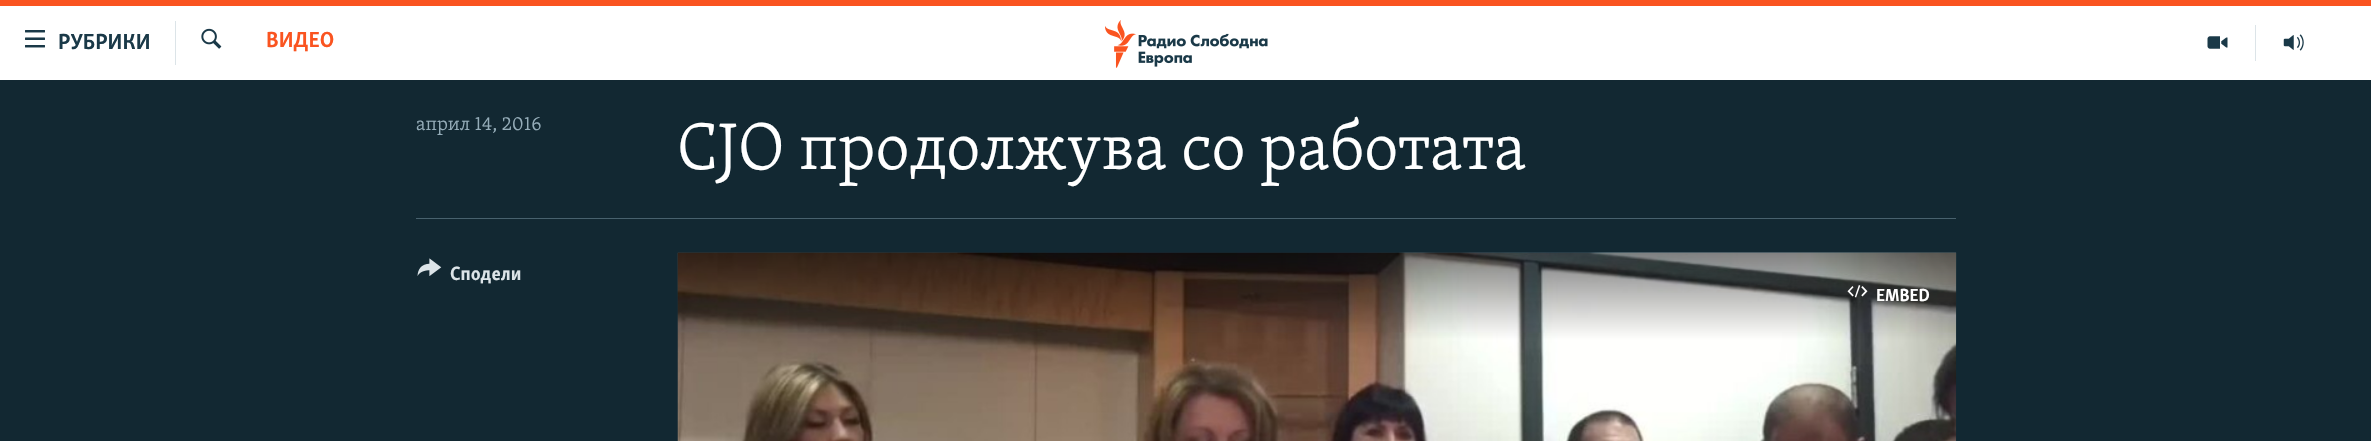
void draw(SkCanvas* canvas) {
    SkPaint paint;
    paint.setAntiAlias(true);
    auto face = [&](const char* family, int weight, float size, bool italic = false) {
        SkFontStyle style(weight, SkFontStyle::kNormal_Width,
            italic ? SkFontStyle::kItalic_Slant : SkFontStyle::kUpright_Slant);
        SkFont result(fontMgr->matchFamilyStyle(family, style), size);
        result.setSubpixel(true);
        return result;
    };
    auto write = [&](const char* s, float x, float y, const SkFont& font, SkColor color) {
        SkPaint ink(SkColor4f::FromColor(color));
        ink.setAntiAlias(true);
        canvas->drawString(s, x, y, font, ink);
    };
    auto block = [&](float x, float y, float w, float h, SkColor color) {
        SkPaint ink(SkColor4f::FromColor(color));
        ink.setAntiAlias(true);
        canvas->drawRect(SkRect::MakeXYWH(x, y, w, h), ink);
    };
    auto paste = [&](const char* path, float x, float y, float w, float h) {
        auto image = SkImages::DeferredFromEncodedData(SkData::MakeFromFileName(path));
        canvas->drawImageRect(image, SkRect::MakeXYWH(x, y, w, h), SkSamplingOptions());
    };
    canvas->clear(SK_ColorWHITE);
    block(0, 0, 2371, 6, SkColorSetRGB(250, 84, 32));
    paste("pic1.png", 25, 30, 20, 18);
    auto kFont1 = face("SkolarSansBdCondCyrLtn", 700, 22.5f);
    write("РУБРИКИ", 58, 49, kFont1, SkColorSetRGB(26, 57, 72));
    block(175, 21, 1, 44, SkColorSetRGB(220, 228, 232));
    paste("pic2.png", 201, 28, 21, 21);
    write("ВИДЕО", 266, 47, kFont1, SkColorSetRGB(250, 84, 32));
    paste("pic3.png", 1105, 20, 163, 48);
    block(2255, 25, 1, 36, SkColorSetRGB(220, 228, 232));
    paste("pic4.png", 2207, 36, 21, 13);
    paste("pic5.png", 2283, 34, 21, 17);
    block(0, 80, 2371, 361, SkColorSetRGB(18, 40, 50));
    auto kFont2 = face("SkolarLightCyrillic", 300, 19.75f);
    write("април 14, 2016", 416, 130, kFont2, SkColorSetRGB(149, 173, 185));
    auto kFont3 = face("SkolarLightCyrillic", 300, 67.5f);
    write("СЈО продолжува со работата", 677, 169, kFont3, SK_ColorWHITE);
    block(416, 218, 1540, 1, SkColorSetRGB(72, 97, 109));
    paste("pic6.png", 417, 258, 25, 18);
    auto kFont4 = face("SkolarSansBdCondCyrLtn", 700, 19.75f);
    write("Сподели", 450, 280, kFont4, SkColorSetRGB(220, 228, 232));
    paste("pic7.png", 677, 252, 1280, 189);
    paste("pic8.png", 1847, 285, 21, 13);
    auto kFont5 = face("SkolarSansBdCondCyrLtn", 700, 18);
    write("EMBED", 1876, 301, kFont5, SK_ColorWHITE);
}
